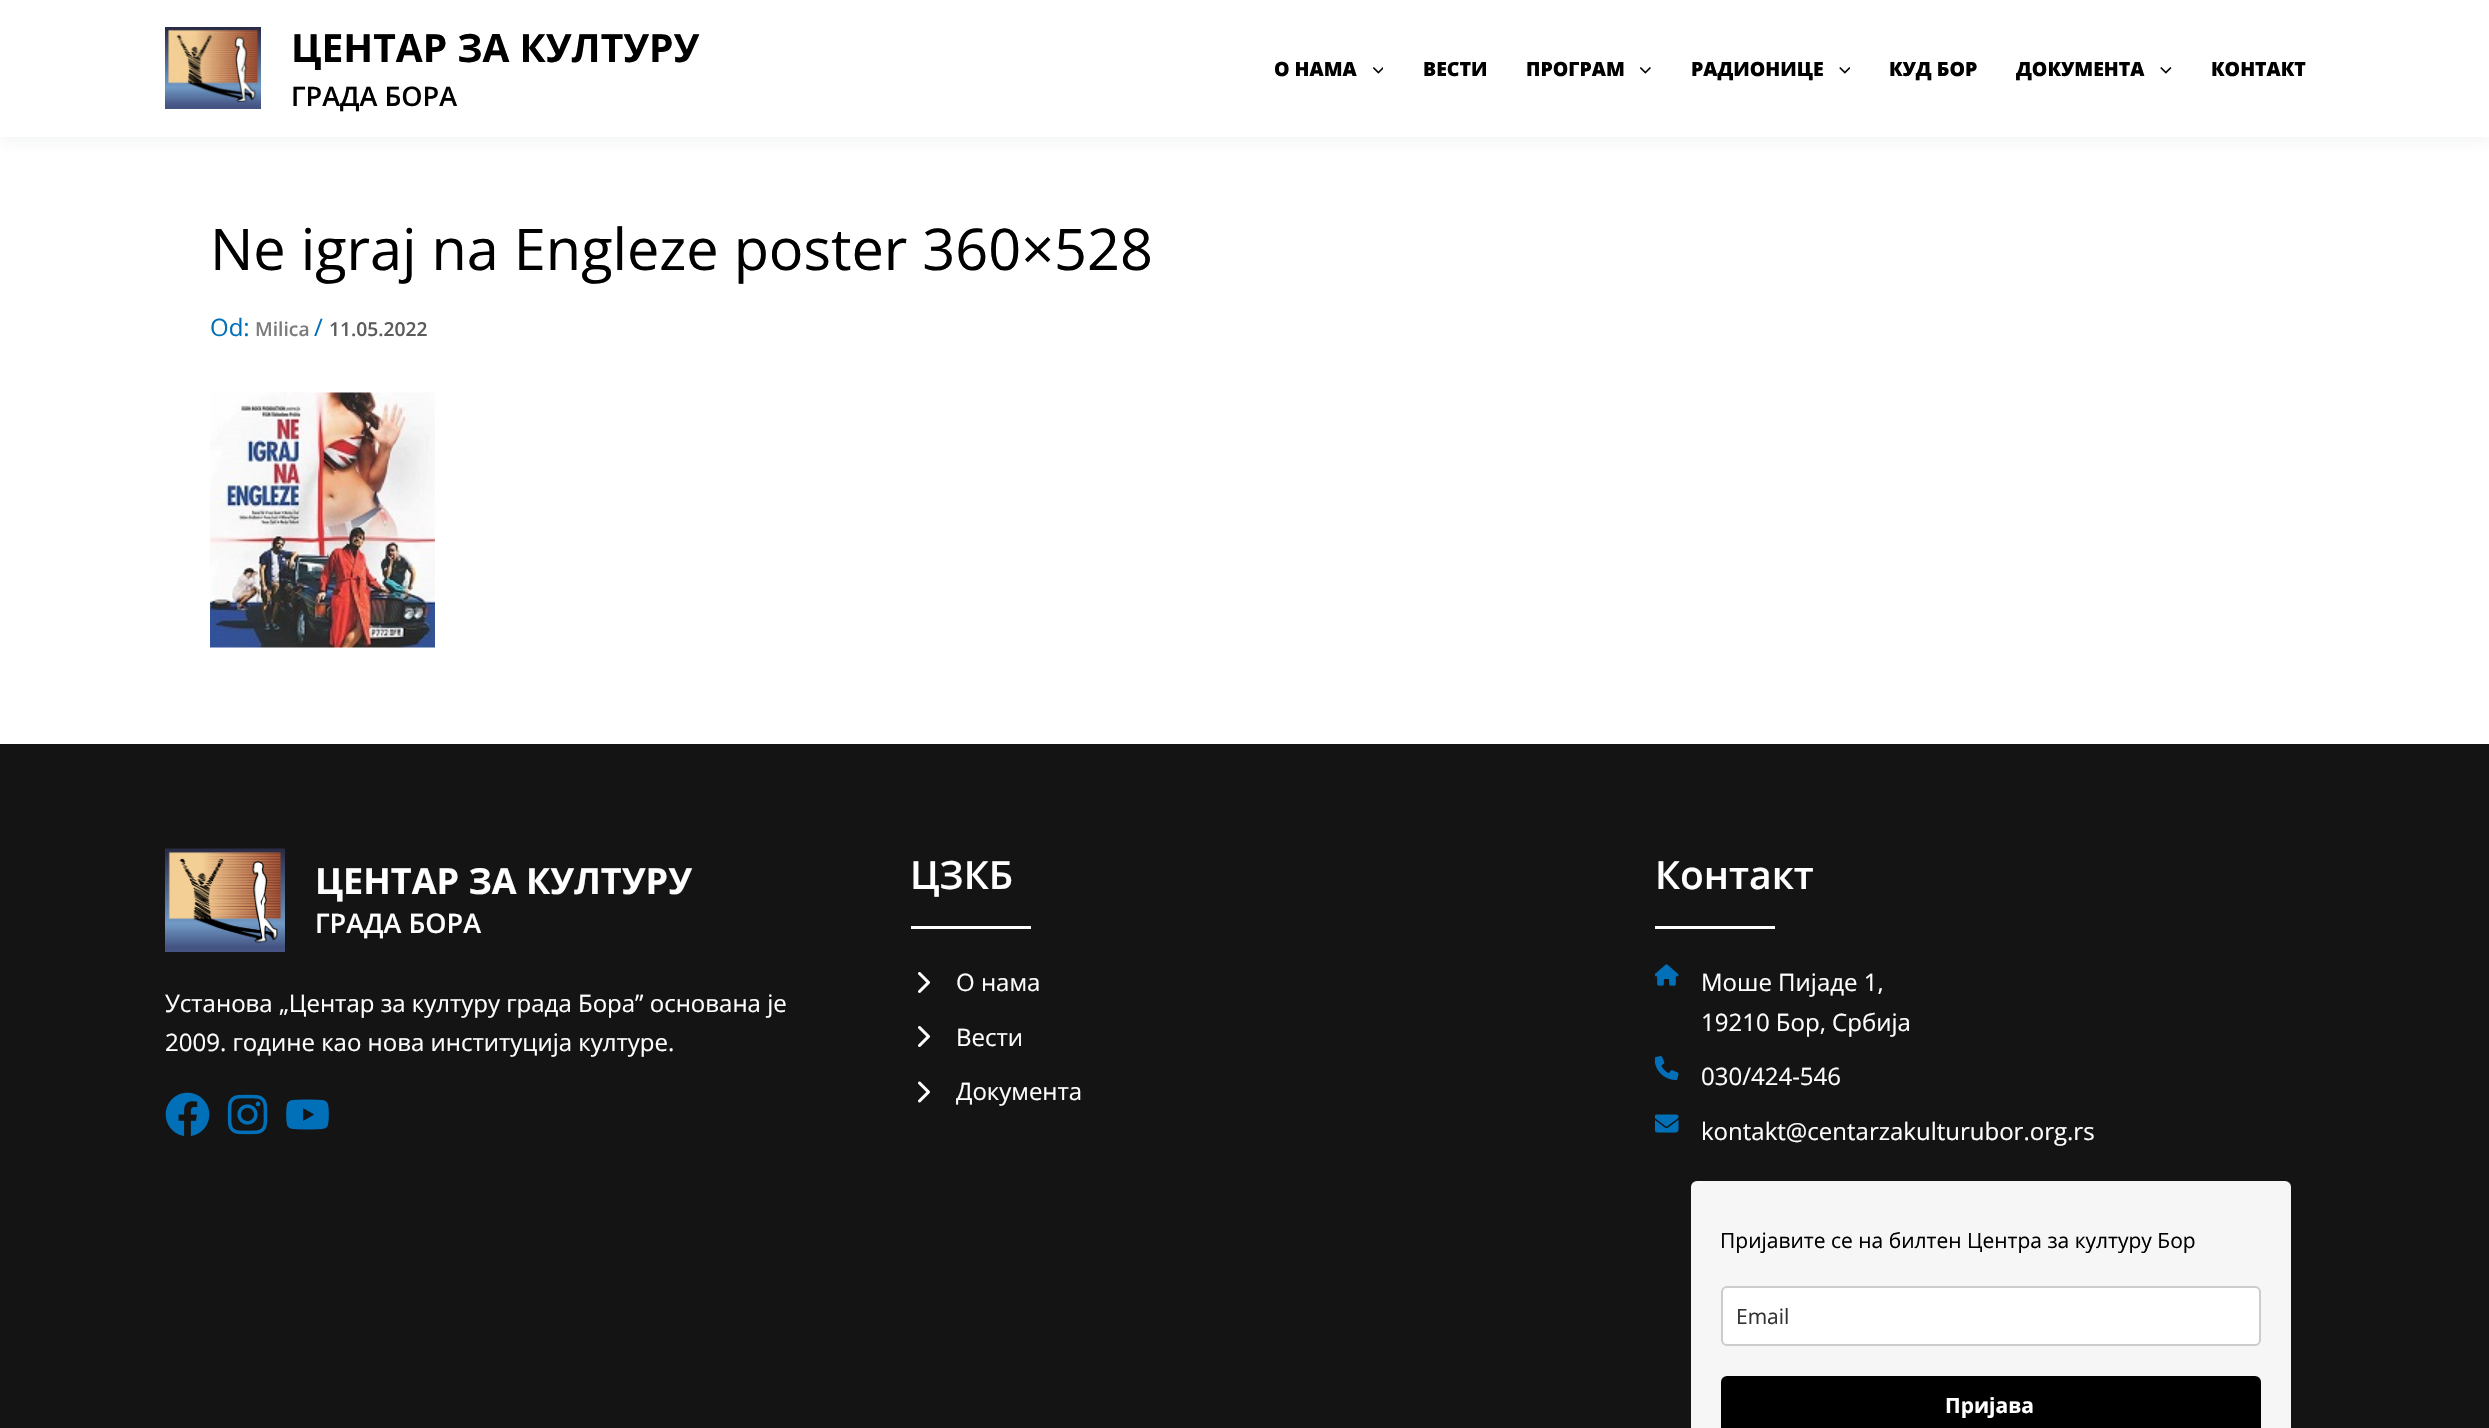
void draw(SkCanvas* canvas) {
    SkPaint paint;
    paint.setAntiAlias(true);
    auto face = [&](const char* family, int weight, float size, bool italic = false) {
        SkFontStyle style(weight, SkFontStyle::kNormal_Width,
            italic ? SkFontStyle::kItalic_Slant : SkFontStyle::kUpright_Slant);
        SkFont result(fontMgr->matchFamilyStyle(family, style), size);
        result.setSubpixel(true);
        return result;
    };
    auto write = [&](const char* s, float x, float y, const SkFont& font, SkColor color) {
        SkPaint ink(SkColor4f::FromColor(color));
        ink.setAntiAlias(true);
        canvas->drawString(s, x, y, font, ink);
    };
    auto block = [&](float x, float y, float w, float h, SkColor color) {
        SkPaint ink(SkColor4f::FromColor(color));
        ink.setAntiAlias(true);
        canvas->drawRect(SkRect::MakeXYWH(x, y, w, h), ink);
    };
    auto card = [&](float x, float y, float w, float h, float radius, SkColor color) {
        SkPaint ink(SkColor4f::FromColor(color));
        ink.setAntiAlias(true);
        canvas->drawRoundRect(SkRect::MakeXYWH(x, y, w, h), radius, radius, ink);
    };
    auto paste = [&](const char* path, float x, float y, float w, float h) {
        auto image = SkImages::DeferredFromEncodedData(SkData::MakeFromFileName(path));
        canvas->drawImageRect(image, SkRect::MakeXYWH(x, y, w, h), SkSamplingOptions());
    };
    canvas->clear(SK_ColorWHITE);
    paint.setColor(SkColorSetARGB(18, 36, 50, 66));
    paint.setMaskFilter(SkMaskFilter::MakeBlur(kNormal_SkBlurStyle, 7.5f));
    canvas->drawRect(SkRect::MakeXYWH(0, 3, 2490, 137), paint);
    paint.setMaskFilter(nullptr);
    block(0, 0, 2489, 137, SK_ColorWHITE);
    paste("pic1.png", 165, 27, 96, 82);
    auto kFont1 = face("Open Sans", 700, 39);
    write("ЦЕНТАР ЗА КУЛТУРУ", 291, 62, kFont1, SK_ColorBLACK);
    auto kFont2 = face("Open Sans", 600, 27);
    write("ГРАДА БОРА", 291, 106, kFont2, SK_ColorBLACK);
    auto kFont3 = face("Open Sans", 800, 19.5f);
    write("О НАМА", 1274, 76, kFont3, SK_ColorBLACK);
    paste("pic2.png", 1373, 67, 10, 7);
    write("ВЕСТИ", 1423, 76, kFont3, SK_ColorBLACK);
    write("ПРОГРАМ", 1526, 76, kFont3, SK_ColorBLACK);
    paste("pic3.png", 1640, 67, 11, 7);
    write("РАДИОНИЦЕ", 1691, 76, kFont3, SK_ColorBLACK);
    paste("pic4.png", 1839, 67, 11, 7);
    write("КУД БОР", 1889, 76, kFont3, SK_ColorBLACK);
    write("ДОКУМЕНТА", 2016, 76, kFont3, SK_ColorBLACK);
    paste("pic5.png", 2160, 67, 12, 7);
    write("КОНТАКТ", 2211, 76, kFont3, SK_ColorBLACK);
    auto kFont4 = face("Open Sans", 400, 57.6f);
    write("Ne igraj na Engleze poster 360×528", 210, 270, kFont4, SK_ColorBLACK);
    auto kFont5 = face("Open Sans", 400, 24);
    write("Od:", 210, 336, kFont5, SkColorSetRGB(1, 112, 185));
    auto kFont6 = face("Open Sans", 600, 19.25f);
    write("Milica", 255, 336, kFont6, SkColorSetRGB(124, 124, 124));
    write("/", 314, 336, kFont5, SkColorSetRGB(1, 112, 185));
    write("11.05.2022", 329, 336, kFont6, SkColorSetRGB(92, 92, 92));
    paste("pic6.png", 210, 392, 225, 256);
    block(0, 744, 2489, 684, SkColorSetRGB(20, 20, 20));
    paste("pic7.png", 165, 848, 120, 104);
    auto kFont7 = face("Open Sans", 700, 36);
    write("ЦЕНТАР ЗА КУЛТУРУ", 315, 894, kFont7, SK_ColorWHITE);
    write("ГРАДА БОРА", 315, 933, kFont2, SK_ColorWHITE);
    write("Установа „Центар за културу града Бора” основана је", 165, 1012, kFont5, SK_ColorWHITE);
    write("2009. године као нова институција културе.", 165, 1051, kFont5, SK_ColorWHITE);
    paste("pic8.png", 165, 1092, 45, 44);
    paste("pic9.png", 227, 1094, 41, 41);
    paste("pic10.png", 286, 1099, 43, 31);
    auto kFont8 = face("Open Sans", 600, 39);
    write("ЦЗКБ", 910, 889, kFont8, SK_ColorWHITE);
    block(911, 926, 120, 3, SK_ColorWHITE);
    paste("pic11.png", 918, 972, 12, 21);
    write("О нама", 956, 991, kFont5, SK_ColorWHITE);
    paste("pic11.png", 918, 1026, 12, 21);
    write("Вести", 956, 1046, kFont5, SK_ColorWHITE);
    paste("pic12.png", 918, 1081, 12, 22);
    write("Документа", 956, 1100, kFont5, SK_ColorWHITE);
    write("Контакт", 1655, 889, kFont8, SK_ColorWHITE);
    block(1655, 926, 120, 3, SK_ColorWHITE);
    paste("pic13.png", 1655, 964, 24, 22);
    write("Моше Пијаде 1,", 1701, 991, kFont5, SK_ColorWHITE);
    write("19210 Бор, Србија", 1701, 1031, kFont5, SK_ColorWHITE);
    paste("pic14.png", 1655, 1056, 24, 24);
    write("030/424-546", 1701, 1085, kFont5, SK_ColorWHITE);
    paste("pic15.png", 1655, 1114, 24, 19);
    write("kontakt@centarzakulturubor.org.rs", 1701, 1140, kFont5, SK_ColorWHITE);
    card(1691, 1181, 600, 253, 6, SkColorSetRGB(246, 246, 246));
    auto kFont9 = face("Open Sans", 400, 21);
    write("Пријавите се на билтен Центра за културу Бор", 1720, 1248, kFont9, SK_ColorBLACK);
    paint.setColor(SK_ColorWHITE);
    canvas->drawRoundRect(SkRect::MakeXYWH(1722, 1287, 538, 58), 5, 5, paint);
    paint.setStyle(SkPaint::kStroke_Style);
    paint.setStrokeWidth(2);
    paint.setColor(SkColorSetRGB(204, 204, 204));
    canvas->drawRoundRect(SkRect::MakeXYWH(1722, 1287, 538, 58), 5, 5, paint);
    write("Email", 1736, 1324, kFont9, SkColorSetRGB(51, 51, 51));
    card(1721, 1376, 540, 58, 6, SK_ColorBLACK);
    auto kFont10 = face("Open Sans", 700, 21);
    write("Пријава", 1945, 1413, kFont10, SK_ColorWHITE);
}
